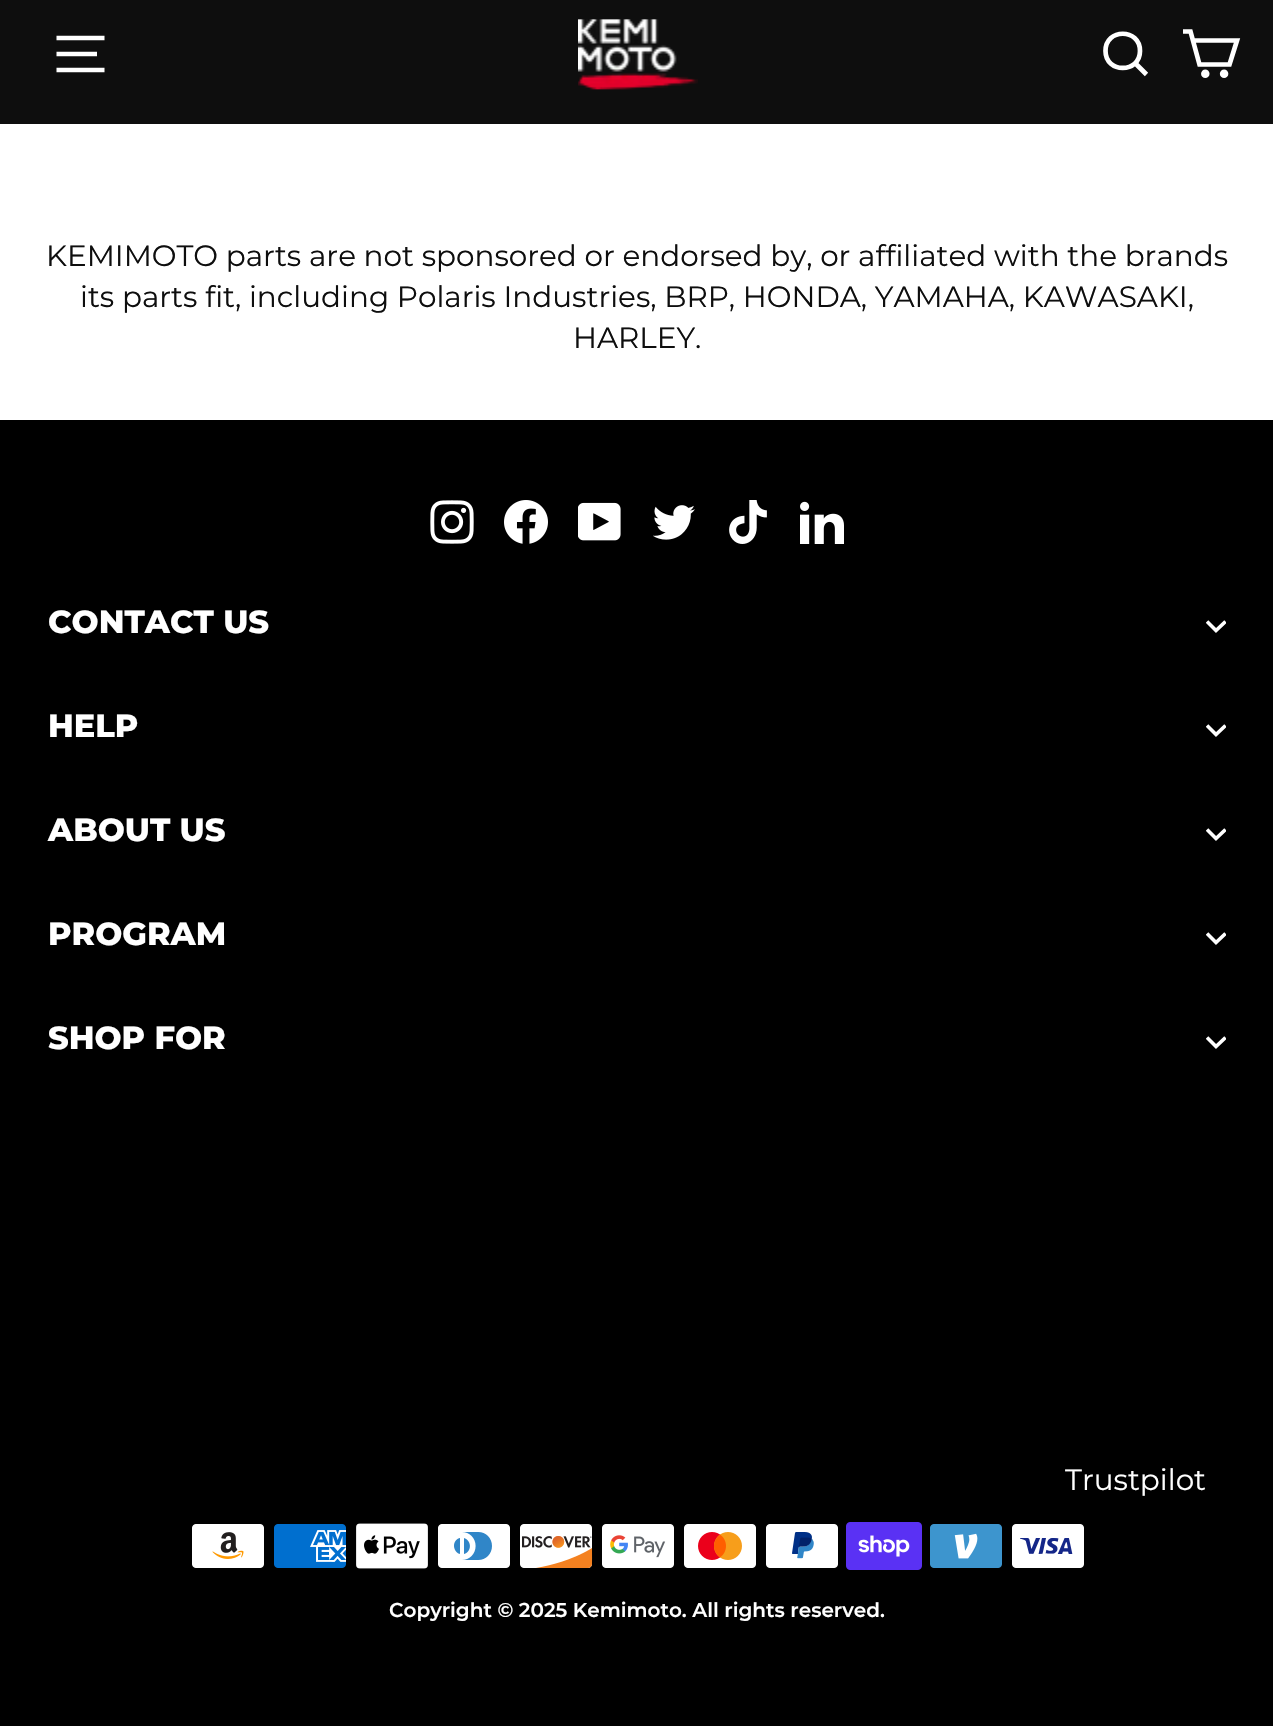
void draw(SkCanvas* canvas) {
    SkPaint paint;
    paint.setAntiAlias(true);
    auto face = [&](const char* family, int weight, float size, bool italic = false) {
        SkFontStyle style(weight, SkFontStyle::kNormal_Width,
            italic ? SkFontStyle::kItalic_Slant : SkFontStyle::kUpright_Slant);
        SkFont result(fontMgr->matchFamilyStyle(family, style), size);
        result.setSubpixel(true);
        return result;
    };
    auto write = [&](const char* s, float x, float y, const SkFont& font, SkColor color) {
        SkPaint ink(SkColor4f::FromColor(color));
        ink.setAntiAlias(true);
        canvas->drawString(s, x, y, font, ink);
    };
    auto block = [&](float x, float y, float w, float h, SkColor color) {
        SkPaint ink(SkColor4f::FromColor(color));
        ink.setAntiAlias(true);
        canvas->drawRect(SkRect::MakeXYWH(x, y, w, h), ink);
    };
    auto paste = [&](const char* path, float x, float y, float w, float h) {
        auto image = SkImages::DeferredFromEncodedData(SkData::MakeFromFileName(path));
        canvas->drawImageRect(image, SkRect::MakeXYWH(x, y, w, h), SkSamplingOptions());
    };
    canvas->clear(SK_ColorWHITE);
    block(0, 0, 1273, 124, SkColorSetRGB(14, 14, 14));
    paint.setStyle(SkPaint::kStroke_Style);
    paint.setStrokeWidth(4.7f);
    paint.setColor(SK_ColorWHITE);
    canvas->drawPath(SkPathBuilder().moveTo(56.5f, 38).lineTo(104.5f, 38).moveTo(56.5f, 54).lineTo(97, 54).moveTo(56.5f, 70).lineTo(104.5f, 70).detach(), paint);
    paste("pic1.png", 578, 19, 120, 71);
    canvas->drawPath(SkPathBuilder().moveTo(1140, 51).cubicTo(1140, 73.5f, 1105.5f, 73.5f, 1105.5f, 51).cubicTo(1105.5f, 28, 1140, 28, 1140, 51).close().moveTo(1146.5f, 74.5f).lineTo(1135.5f, 63.5f).detach(), paint);
    canvas->drawPath(SkPathBuilder().moveTo(1193, 40.5f).lineTo(1237, 40.5f).lineTo(1229.5f, 64.5f).lineTo(1199.5f, 64.5f).lineTo(1190.5f, 31.5f).lineTo(1183, 31.5f).detach(), paint);
    paint.setStyle(SkPaint::kFill_Style);
    canvas->drawCircle(1205.3f, 73.7f, 1.9f, paint);
    paint.setStyle(SkPaint::kStroke_Style);
    canvas->drawCircle(1205.3f, 73.7f, 1.9f, paint);
    paint.setStyle(SkPaint::kFill_Style);
    canvas->drawCircle(1224.1f, 73.7f, 1.9f, paint);
    paint.setStyle(SkPaint::kStroke_Style);
    canvas->drawCircle(1224.1f, 73.7f, 1.9f, paint);
    auto kFont1 = face("Montserrat", 400, 29.45f);
    write("KEMIMOTO parts are not sponsored or endorsed by, or affiliated with the brands", 46, 266, kFont1, SkColorSetRGB(14, 14, 14));
    write("its parts fit, including Polaris Industries, BRP, HONDA, YAMAHA, KAWASAKI,", 80, 307, kFont1, SkColorSetRGB(14, 14, 14));
    write("HARLEY.", 573, 348, kFont1, SkColorSetRGB(14, 14, 14));
    block(0, 420, 1273, 1306, SK_ColorBLACK);
    paste("pic2.png", 430, 500, 44, 44);
    paste("pic3.png", 504, 500, 44, 44);
    paste("pic4.png", 578, 502, 43, 39);
    paste("pic5.png", 653, 505, 42, 35);
    paste("pic6.png", 729, 500, 38, 44);
    paste("pic7.png", 800, 501, 44, 43);
    auto kFont2 = face("Montserrat", 800, 32);
    write("CONTACT US", 48, 633, kFont2, SK_ColorWHITE);
    canvas->save();
    canvas->clipRect(SkRect::MakeXYWH(1206, 616, 20, 20));
    paint.setStrokeWidth(3.6f);
    canvas->drawPath(SkPathBuilder().moveTo(1207, 621.5f).lineTo(1216, 630.5f).lineTo(1225.5f, 621.5f).detach(), paint);
    canvas->restore();
    write("HELP", 48, 737, kFont2, SK_ColorWHITE);
    canvas->save();
    canvas->clipRect(SkRect::MakeXYWH(1206, 720, 20, 20));
    canvas->drawPath(SkPathBuilder().moveTo(1207, 725.5f).lineTo(1216, 734.5f).lineTo(1225.5f, 725.5f).detach(), paint);
    canvas->restore();
    write("ABOUT US", 48, 841, kFont2, SK_ColorWHITE);
    canvas->save();
    canvas->clipRect(SkRect::MakeXYWH(1206, 824, 20, 20));
    canvas->drawPath(SkPathBuilder().moveTo(1207, 829.5f).lineTo(1216, 838.5f).lineTo(1225.5f, 829.5f).detach(), paint);
    canvas->restore();
    write("PROGRAM", 48, 945, kFont2, SK_ColorWHITE);
    canvas->save();
    canvas->clipRect(SkRect::MakeXYWH(1206, 928, 20, 20));
    canvas->drawPath(SkPathBuilder().moveTo(1207, 933.5f).lineTo(1216, 942.5f).lineTo(1225.5f, 933.5f).detach(), paint);
    canvas->restore();
    write("SHOP FOR", 48, 1049, kFont2, SK_ColorWHITE);
    canvas->save();
    canvas->clipRect(SkRect::MakeXYWH(1206, 1032, 20, 20));
    canvas->drawPath(SkPathBuilder().moveTo(1207, 1037.5f).lineTo(1216, 1046.5f).lineTo(1225.5f, 1037.5f).detach(), paint);
    canvas->restore();
    write("Trustpilot", 1065, 1490, kFont1, SK_ColorWHITE);
    paste("pic8.png", 192, 1524, 72, 44);
    paste("pic9.png", 274, 1524, 72, 44);
    paste("pic10.png", 356, 1523, 72, 46);
    paste("pic11.png", 438, 1524, 72, 44);
    paste("pic12.png", 520, 1524, 73, 44);
    paste("pic13.png", 602, 1524, 72, 44);
    paste("pic14.png", 684, 1524, 72, 44);
    paste("pic15.png", 766, 1524, 72, 44);
    paste("pic16.png", 846, 1522, 76, 48);
    paste("pic17.png", 930, 1524, 72, 44);
    paste("pic18.png", 1012, 1524, 72, 44);
    auto kFont3 = face("Montserrat", 600, 20);
    write("Copyright © 2025 Kemimoto. All rights reserved.", 389, 1617, kFont3, SK_ColorWHITE);
}
